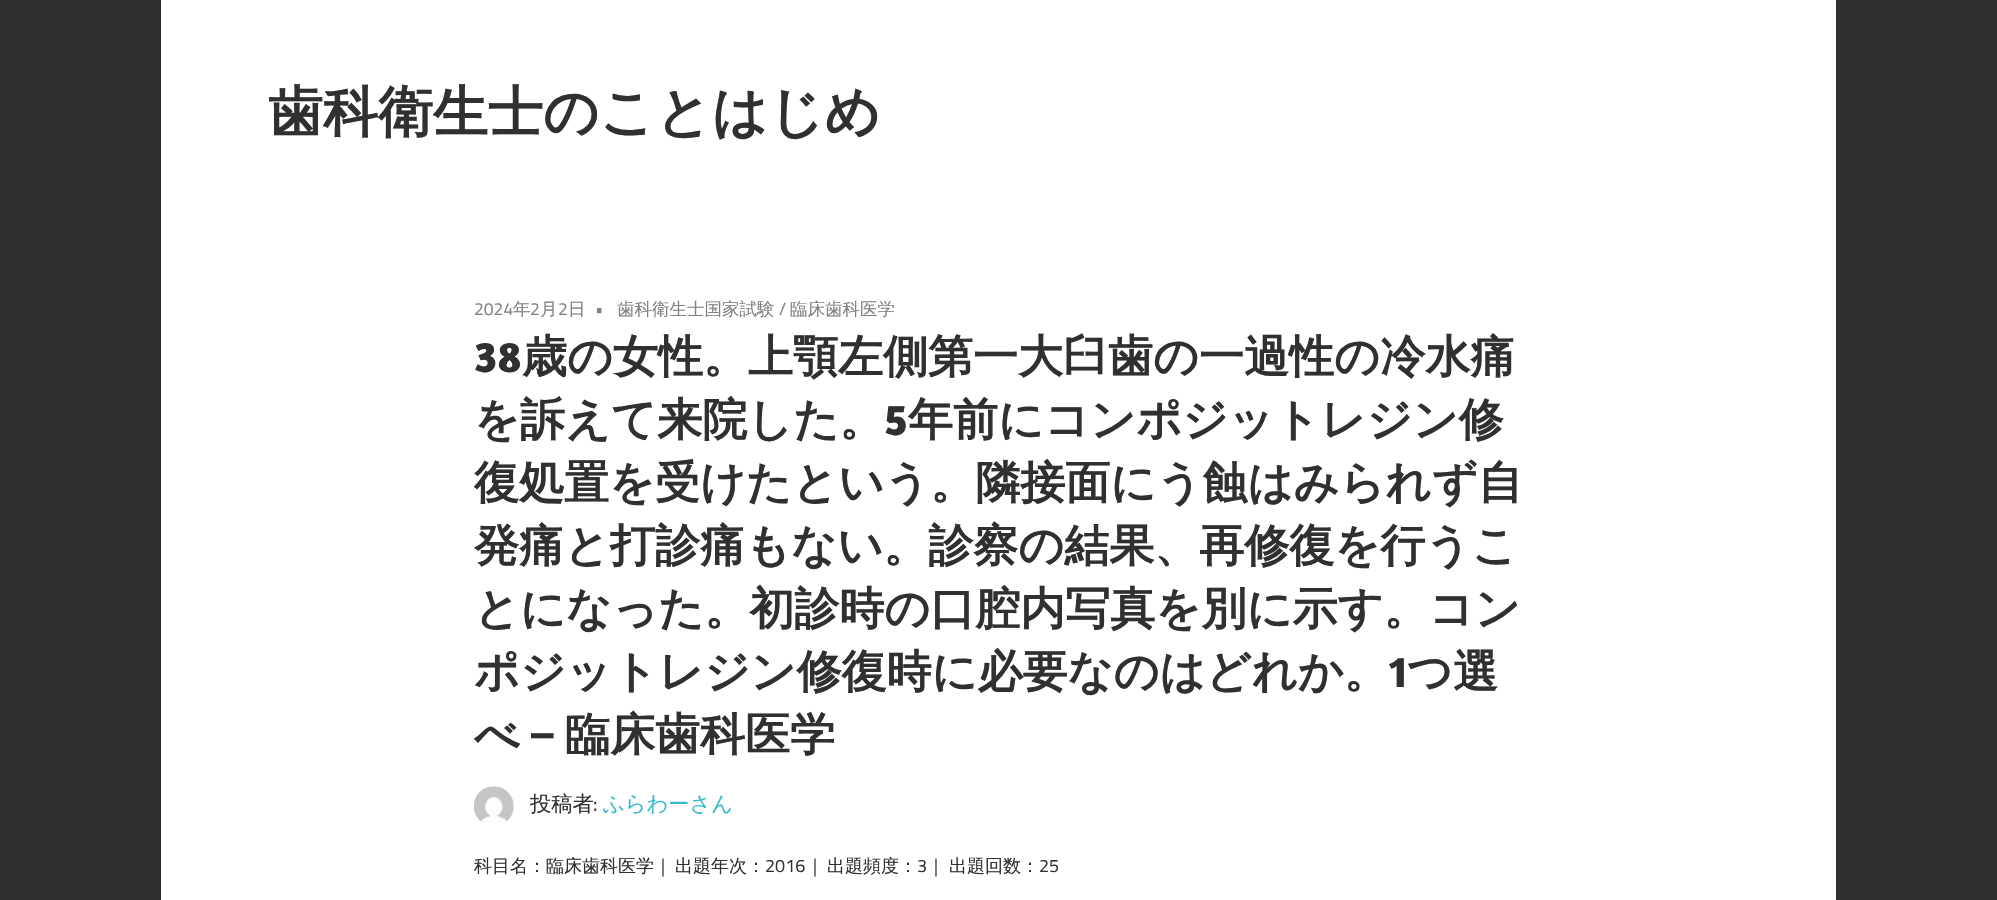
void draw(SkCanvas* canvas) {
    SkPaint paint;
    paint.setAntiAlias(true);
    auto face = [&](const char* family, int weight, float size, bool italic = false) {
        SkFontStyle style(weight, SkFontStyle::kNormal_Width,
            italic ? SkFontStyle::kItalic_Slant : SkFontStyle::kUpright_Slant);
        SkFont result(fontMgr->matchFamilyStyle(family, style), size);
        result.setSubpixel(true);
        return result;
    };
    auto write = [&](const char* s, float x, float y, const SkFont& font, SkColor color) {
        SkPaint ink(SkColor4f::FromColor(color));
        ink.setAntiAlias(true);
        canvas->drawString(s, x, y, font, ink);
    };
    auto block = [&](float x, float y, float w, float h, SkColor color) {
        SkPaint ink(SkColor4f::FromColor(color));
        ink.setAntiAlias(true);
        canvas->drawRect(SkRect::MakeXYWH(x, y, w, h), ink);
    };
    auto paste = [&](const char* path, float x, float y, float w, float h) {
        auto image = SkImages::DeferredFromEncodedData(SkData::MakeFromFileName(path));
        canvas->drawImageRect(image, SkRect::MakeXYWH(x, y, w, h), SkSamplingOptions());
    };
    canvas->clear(SkColorSetRGB(48, 48, 48));
    block(161, 0, 1675, 900, SK_ColorWHITE);
    auto kFont1 = face("WenQuanYi Zen Hei", 700, 55);
    write("歯科衛生士のことはじめ", 268, 131, kFont1, SkColorSetRGB(48, 48, 48));
    auto kFont2 = face("Titillium Web", 400, 17.5f);
    write("2024", 474, 315, kFont2, SkColorSetRGB(128, 128, 128));
    auto kFont3 = face("WenQuanYi Zen Hei", 500, 17.5f);
    write("年", 513, 315, kFont3, SkColorSetRGB(128, 128, 128));
    write("2", 530, 315, kFont2, SkColorSetRGB(128, 128, 128));
    write("月", 540, 315, kFont3, SkColorSetRGB(128, 128, 128));
    write("2", 558, 315, kFont2, SkColorSetRGB(128, 128, 128));
    write("日", 568, 315, kFont3, SkColorSetRGB(128, 128, 128));
    write("•", 595, 315, kFont2, SkColorSetRGB(128, 128, 128));
    write("歯科衛生士国家試験", 617, 315, kFont3, SkColorSetRGB(128, 128, 128));
    write("/", 779, 315, kFont2, SkColorSetRGB(128, 128, 128));
    write("臨床歯科医学", 790, 315, kFont3, SkColorSetRGB(128, 128, 128));
    auto kFont4 = face("Amaranth", 700, 45);
    write("38", 474, 372, kFont4, SkColorSetRGB(48, 48, 48));
    auto kFont5 = face("WenQuanYi Zen Hei", 700, 45);
    write("歳の女性。上顎左側第一大臼歯の一過性の冷水痛", 522, 372, kFont5, SkColorSetRGB(48, 48, 48));
    write("を訴えて来院した。", 474, 435, kFont5, SkColorSetRGB(48, 48, 48));
    write("5", 884, 435, kFont4, SkColorSetRGB(48, 48, 48));
    write("年前にコンポジットレジン修", 908, 435, kFont5, SkColorSetRGB(48, 48, 48));
    write("復処置を受けたという。隣接面にう蝕はみられず自", 474, 498, kFont5, SkColorSetRGB(48, 48, 48));
    write("発痛と打診痛もない。診察の結果、再修復を行うこ", 474, 561, kFont5, SkColorSetRGB(48, 48, 48));
    write("とになった。初診時の口腔内写真を別に示す。コン", 474, 624, kFont5, SkColorSetRGB(48, 48, 48));
    write("ポジットレジン修復時に必要なのはどれか。", 474, 687, kFont5, SkColorSetRGB(48, 48, 48));
    write("1", 1389, 687, kFont4, SkColorSetRGB(48, 48, 48));
    write("つ選", 1407, 687, kFont5, SkColorSetRGB(48, 48, 48));
    write("べ", 474, 750, kFont5, SkColorSetRGB(48, 48, 48));
    write("–", 531, 750, kFont4, SkColorSetRGB(48, 48, 48));
    write("臨床歯科医学", 565, 750, kFont5, SkColorSetRGB(48, 48, 48));
    paste("pic1.png", 474, 786, 40, 37);
    auto kFont6 = face("WenQuanYi Zen Hei", 500, 21.25f);
    write("投稿者", 530, 811, kFont6, SkColorSetRGB(48, 48, 48));
    auto kFont7 = face("Titillium Web", 400, 21.25f);
    write(":", 593, 811, kFont7, SkColorSetRGB(48, 48, 48));
    write("ふらわーさん", 603, 811, kFont6, SkColorSetRGB(51, 187, 204));
    auto kFont8 = face("WenQuanYi Zen Hei", 500, 18);
    write("科目名：臨床歯科医学｜", 474, 872, kFont8, SkColorSetRGB(48, 48, 48));
    write("出題年次：", 675, 872, kFont8, SkColorSetRGB(48, 48, 48));
    auto kFont9 = face("Titillium Web", 400, 18);
    write("2016", 765, 872, kFont9, SkColorSetRGB(48, 48, 48));
    write("｜", 806, 872, kFont8, SkColorSetRGB(48, 48, 48));
    write("出題頻度：", 827, 872, kFont8, SkColorSetRGB(48, 48, 48));
    write("3", 917, 872, kFont9, SkColorSetRGB(48, 48, 48));
    write("｜", 927, 872, kFont8, SkColorSetRGB(48, 48, 48));
    write("出題回数：", 949, 872, kFont8, SkColorSetRGB(48, 48, 48));
    write("25", 1039, 872, kFont9, SkColorSetRGB(48, 48, 48));
}
